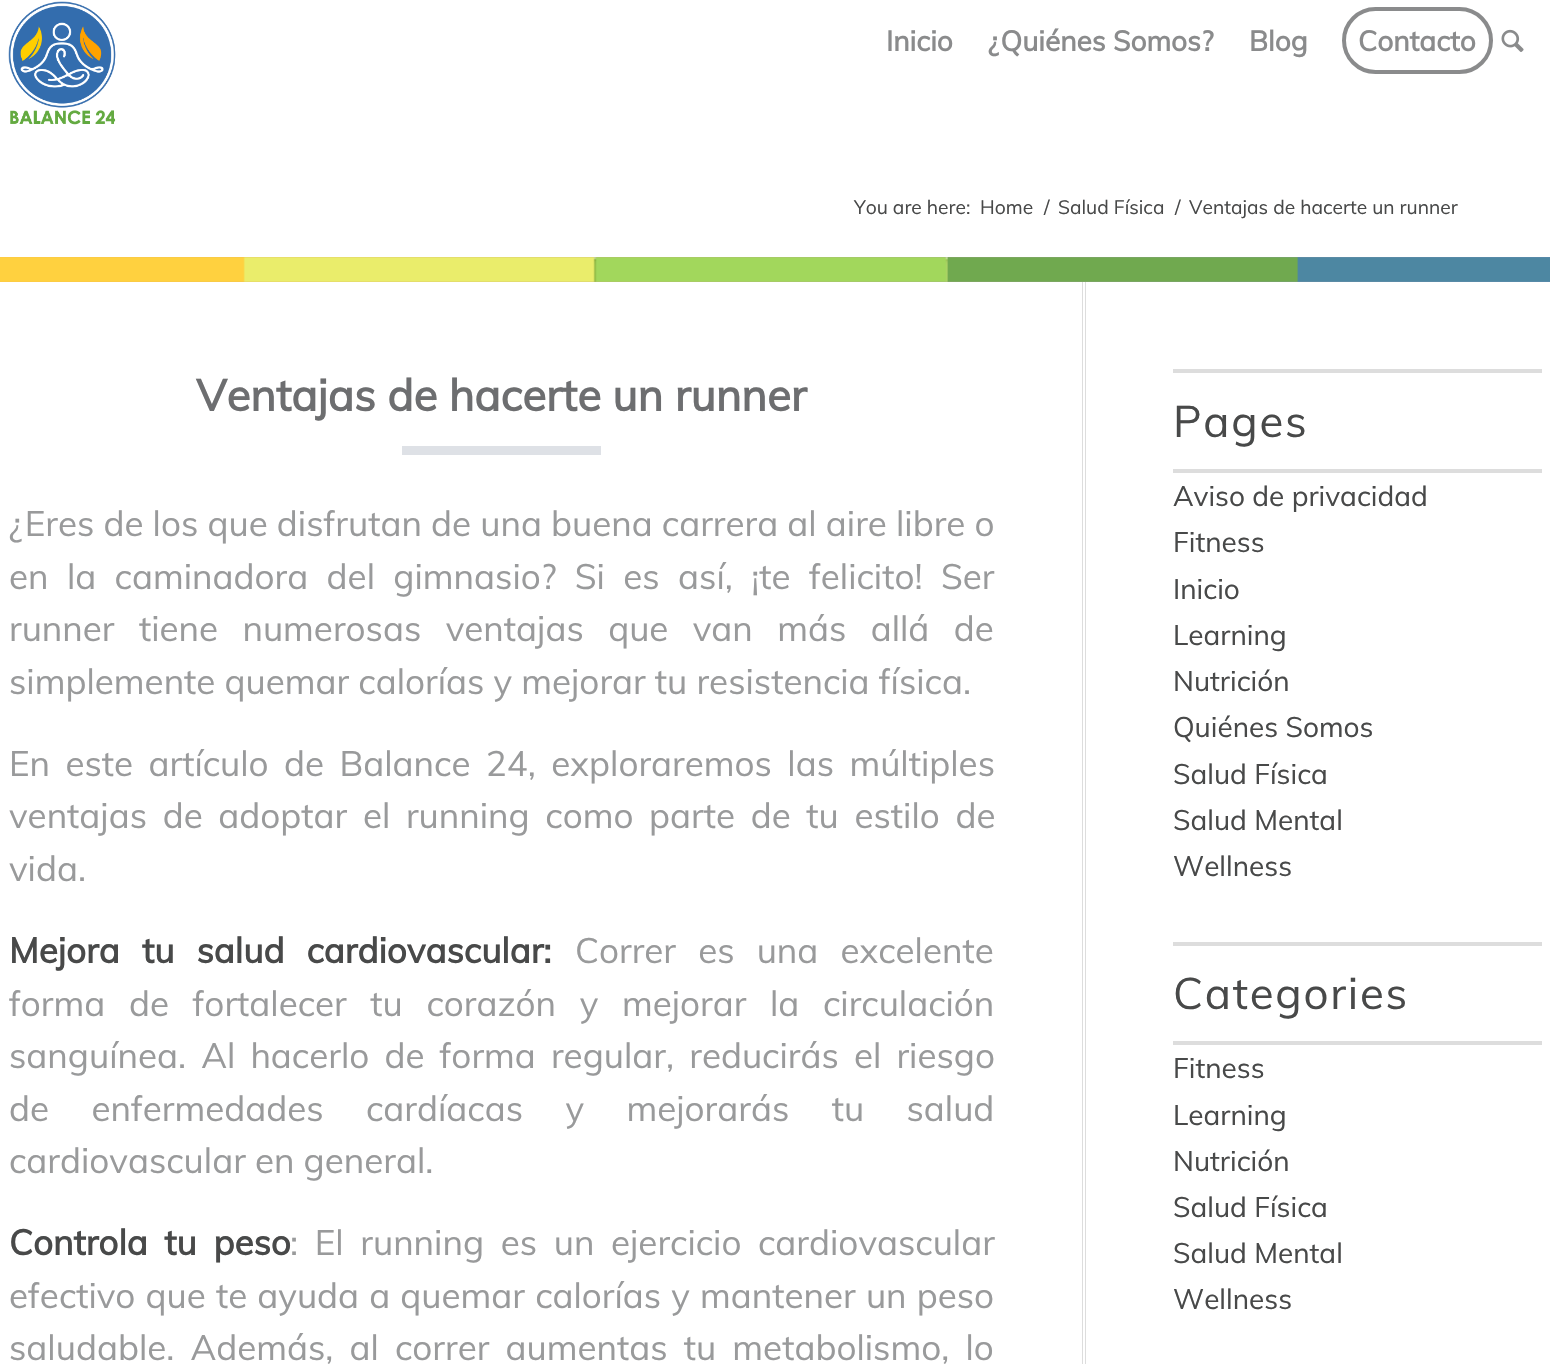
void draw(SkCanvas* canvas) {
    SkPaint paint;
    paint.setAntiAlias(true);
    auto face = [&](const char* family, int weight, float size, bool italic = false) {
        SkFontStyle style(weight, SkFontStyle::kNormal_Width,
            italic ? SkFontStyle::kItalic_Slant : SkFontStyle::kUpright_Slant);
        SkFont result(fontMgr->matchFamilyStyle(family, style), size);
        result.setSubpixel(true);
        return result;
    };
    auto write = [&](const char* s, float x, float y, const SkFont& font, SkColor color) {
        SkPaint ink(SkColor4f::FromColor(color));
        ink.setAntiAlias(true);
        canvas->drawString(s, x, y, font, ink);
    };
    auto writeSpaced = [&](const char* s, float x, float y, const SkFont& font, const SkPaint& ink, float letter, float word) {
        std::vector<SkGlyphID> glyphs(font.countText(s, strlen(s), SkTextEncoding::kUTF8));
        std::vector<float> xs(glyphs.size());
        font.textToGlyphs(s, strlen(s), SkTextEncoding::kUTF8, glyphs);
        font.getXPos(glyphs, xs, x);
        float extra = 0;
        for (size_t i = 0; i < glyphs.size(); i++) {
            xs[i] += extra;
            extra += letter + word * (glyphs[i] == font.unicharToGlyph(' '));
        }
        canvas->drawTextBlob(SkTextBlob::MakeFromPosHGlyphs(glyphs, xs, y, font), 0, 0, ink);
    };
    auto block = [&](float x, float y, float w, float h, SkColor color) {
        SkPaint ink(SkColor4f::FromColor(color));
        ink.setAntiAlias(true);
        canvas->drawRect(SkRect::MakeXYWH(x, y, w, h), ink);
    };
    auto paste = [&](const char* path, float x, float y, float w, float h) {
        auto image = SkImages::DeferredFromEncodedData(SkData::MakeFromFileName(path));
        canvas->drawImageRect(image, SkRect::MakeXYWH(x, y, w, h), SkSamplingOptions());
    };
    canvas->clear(SK_ColorWHITE);
    paste("pic1.png", 8, 1, 108, 124);
    auto kFont1 = face("Muli", 700, 28);
    write("Inicio", 886, 51, kFont1, SkColorSetRGB(138, 139, 140));
    write("¿Quiénes Somos?", 988, 51, kFont1, SkColorSetRGB(138, 139, 140));
    write("Blog", 1249, 51, kFont1, SkColorSetRGB(138, 139, 140));
    paint.setStyle(SkPaint::kStroke_Style);
    paint.setStrokeWidth(4);
    paint.setColor(SkColorSetRGB(138, 139, 140));
    canvas->drawRoundRect(SkRect::MakeXYWH(1344, 9, 147, 63), 31.5f, 31.5f, paint);
    write("Contacto", 1358, 51, kFont1, SkColorSetRGB(138, 139, 140));
    paste("pic2.png", 1501, 29, 23, 23);
    auto kFont2 = face("Muli", 400, 19.25f);
    write("You are here:", 854, 214, kFont2, SkColorSetRGB(72, 73, 73));
    write("Home", 980, 214, kFont2, SkColorSetRGB(72, 73, 73));
    write("/", 1044, 214, kFont2, SkColorSetRGB(72, 73, 73));
    write("Salud Física", 1058, 214, kFont2, SkColorSetRGB(72, 73, 73));
    write("/", 1175, 214, kFont2, SkColorSetRGB(72, 73, 73));
    write("Ventajas de hacerte un runner", 1189, 214, kFont2, SkColorSetRGB(72, 73, 73));
    paste("pic3.png", 0, 257, 1550, 25);
    block(1082, 282, 4, 1082, SkColorSetRGB(221, 221, 221));
    auto kFont3 = face("Muli", 700, 43.75f);
    write("Ventajas de hacerte un runner", 196, 411, kFont3, SkColorSetRGB(109, 110, 112));
    block(402, 446, 199, 9, SkColorSetRGB(222, 225, 230));
    auto kFont4 = face("Muli", 400, 35);
    write("¿Eres de los que disfrutan de una buena carrera al aire libre o", 9, 536, kFont4, SkColorSetRGB(153, 154, 155));
    paint.setStyle(SkPaint::kFill_Style);
    paint.setColor(SkColorSetRGB(153, 154, 155));
    writeSpaced("en la caminadora del gimnasio? Si es así, ¡te felicito! Ser", 9, 589, kFont4, paint, 0, 9.25f);
    writeSpaced("runner tiene numerosas ventajas que van más allá de", 9, 641, kFont4, paint, 0, 15.25f);
    write("simplemente quemar calorías y mejorar tu resistencia física.", 9, 694, kFont4, SkColorSetRGB(153, 154, 155));
    writeSpaced("En este artículo de Balance 24, exploraremos las múltiples", 9, 776, kFont4, paint, 0, 6.25f);
    writeSpaced("ventajas de adoptar el running como parte de tu estilo de", 9, 828, kFont4, paint, 0, 6.5f);
    write("vida.", 9, 881, kFont4, SkColorSetRGB(153, 154, 155));
    auto kFont5 = face("Muli", 700, 35);
    paint.setColor(SkColorSetRGB(72, 73, 73));
    writeSpaced("Mejora tu salud cardiovascular:", 9, 963, kFont5, paint, 0, 13);
    paint.setColor(SkColorSetRGB(153, 154, 155));
    writeSpaced("Correr es una excelente", 575, 963, kFont4, paint, 0, 13);
    writeSpaced("forma de fortalecer tu corazón y mejorar la circulación", 9, 1016, kFont4, paint, 0, 14.5f);
    writeSpaced("sanguínea. Al hacerlo de forma regular, reducirás el riesgo", 9, 1068, kFont4, paint, 0, 6);
    writeSpaced("de enfermedades cardíacas y mejorarás tu salud", 9, 1121, kFont4, paint, 0, 33.25f);
    write("cardiovascular en general.", 9, 1173, kFont4, SkColorSetRGB(153, 154, 155));
    paint.setColor(SkColorSetRGB(72, 73, 73));
    writeSpaced("Controla tu peso", 9, 1255, kFont5, paint, 0, 7.5f);
    paint.setColor(SkColorSetRGB(153, 154, 155));
    writeSpaced(": El running es un ejercicio cardiovascular", 290, 1255, kFont4, paint, 0, 7.5f);
    writeSpaced("efectivo que te ayuda a quemar calorías y mantener un peso", 9, 1308, kFont4, paint, 0, 1);
    writeSpaced("saludable. Además, al correr aumentas tu metabolismo, lo", 9, 1360, kFont4, paint, 0, 7);
    block(1083, 282, 2, 1082, SK_ColorWHITE);
    block(1173, 369, 369, 4, SkColorSetRGB(221, 221, 221));
    block(1173, 469, 369, 4, SkColorSetRGB(221, 221, 221));
    auto kFont6 = face("Muli", 400, 43.75f);
    paint.setColor(SkColorSetRGB(72, 73, 73));
    writeSpaced("Pages", 1173, 437, kFont6, paint, 1.75f, 0);
    auto kFont7 = face("Muli", 400, 28);
    write("Aviso de privacidad", 1173, 506, kFont7, SkColorSetRGB(72, 73, 73));
    write("Fitness", 1173, 552, kFont7, SkColorSetRGB(72, 73, 73));
    write("Inicio", 1173, 599, kFont7, SkColorSetRGB(72, 73, 73));
    write("Learning", 1173, 645, kFont7, SkColorSetRGB(72, 73, 73));
    write("Nutrición", 1173, 691, kFont7, SkColorSetRGB(72, 73, 73));
    write("Quiénes Somos", 1173, 737, kFont7, SkColorSetRGB(72, 73, 73));
    write("Salud Física", 1173, 784, kFont7, SkColorSetRGB(72, 73, 73));
    write("Salud Mental", 1173, 830, kFont7, SkColorSetRGB(72, 73, 73));
    write("Wellness", 1173, 876, kFont7, SkColorSetRGB(72, 73, 73));
    block(1173, 942, 369, 4, SkColorSetRGB(221, 221, 221));
    block(1173, 1041, 369, 4, SkColorSetRGB(221, 221, 221));
    writeSpaced("Categories", 1173, 1009, kFont6, paint, 1.75f, 0);
    write("Fitness", 1173, 1078, kFont7, SkColorSetRGB(72, 73, 73));
    write("Learning", 1173, 1125, kFont7, SkColorSetRGB(72, 73, 73));
    write("Nutrición", 1173, 1171, kFont7, SkColorSetRGB(72, 73, 73));
    write("Salud Física", 1173, 1217, kFont7, SkColorSetRGB(72, 73, 73));
    write("Salud Mental", 1173, 1263, kFont7, SkColorSetRGB(72, 73, 73));
    write("Wellness", 1173, 1309, kFont7, SkColorSetRGB(72, 73, 73));
}
